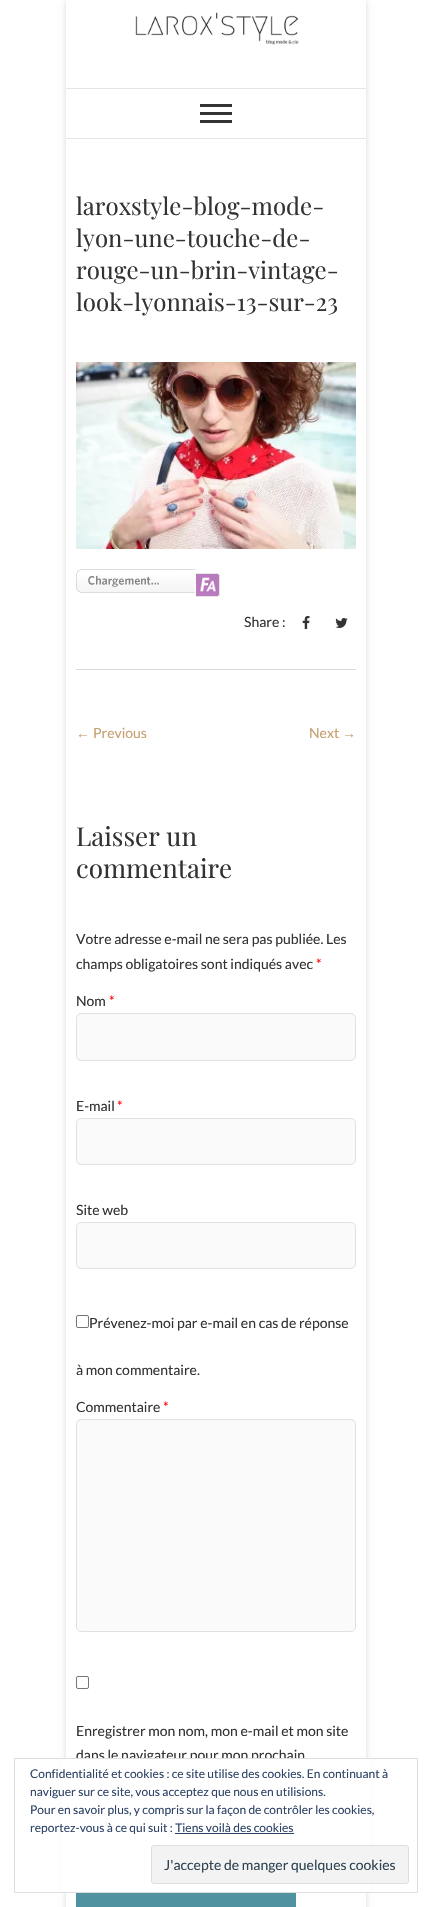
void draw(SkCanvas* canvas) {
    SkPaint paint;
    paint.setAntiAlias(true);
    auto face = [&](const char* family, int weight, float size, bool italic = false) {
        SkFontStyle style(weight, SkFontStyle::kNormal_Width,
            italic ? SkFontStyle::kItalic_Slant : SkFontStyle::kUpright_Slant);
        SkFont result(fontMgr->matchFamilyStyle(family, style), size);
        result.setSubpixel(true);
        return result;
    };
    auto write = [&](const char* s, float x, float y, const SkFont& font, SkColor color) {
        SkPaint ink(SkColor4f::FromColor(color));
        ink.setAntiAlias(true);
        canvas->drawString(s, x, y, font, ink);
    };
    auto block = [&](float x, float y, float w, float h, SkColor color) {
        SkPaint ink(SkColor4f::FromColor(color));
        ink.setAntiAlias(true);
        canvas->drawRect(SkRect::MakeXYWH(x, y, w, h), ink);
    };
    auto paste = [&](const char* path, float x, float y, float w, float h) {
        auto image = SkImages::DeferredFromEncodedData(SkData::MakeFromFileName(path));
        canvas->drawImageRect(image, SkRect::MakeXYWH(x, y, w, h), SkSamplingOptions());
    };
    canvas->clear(SK_ColorWHITE);
    canvas->save();
    canvas->clipPath(SkPathBuilder(SkPathFillType::kEvenOdd).moveTo(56, 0).lineTo(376, 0).lineTo(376, 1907).lineTo(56, 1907).close().moveTo(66, 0).lineTo(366, 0).lineTo(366, 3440).lineTo(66, 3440).close().detach(), true);
    paint.setColor(SkColorSetARGB(38, 0, 0, 0));
    paint.setMaskFilter(SkMaskFilter::MakeBlur(kNormal_SkBlurStyle, 3));
    canvas->drawRect(SkRect::MakeXYWH(66, 1, 300, 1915), paint);
    paint.setMaskFilter(nullptr);
    canvas->restore();
    paste("pic1.png", 135, 12, 164, 33);
    block(66, 88, 300, 1, SkColorSetRGB(230, 230, 230));
    block(66, 138, 300, 1, SkColorSetRGB(230, 230, 230));
    block(200, 104, 32, 3, SkColorSetRGB(51, 51, 51));
    block(200, 112, 32, 3, SkColorSetRGB(51, 51, 51));
    block(200, 120, 32, 3, SkColorSetRGB(51, 51, 51));
    auto kFont1 = face("Playfair Display", 400, 24);
    write("laroxstyle-blog-mode-", 76, 215, kFont1, SkColorSetRGB(51, 51, 51));
    write("lyon-une-touche-de-", 76, 247, kFont1, SkColorSetRGB(51, 51, 51));
    write("rouge-un-brin-vintage-", 76, 279, kFont1, SkColorSetRGB(51, 51, 51));
    write("look-lyonnais-13-sur-23", 76, 311, kFont1, SkColorSetRGB(51, 51, 51));
    paste("pic2.png", 76, 362, 280, 187);
    paste("pic3.png", 76, 569, 119, 24);
    paste("pic4.png", 196, 573, 24, 24);
    auto kFont2 = face("Lato", 400, 14);
    write("Share :", 244, 627, kFont2, SkColorSetRGB(51, 51, 51));
    paste("pic5.png", 302, 616, 8, 13);
    paste("pic6.png", 335, 618, 13, 10);
    block(76, 669, 280, 1, SkColorSetRGB(217, 217, 217));
    auto kFont3 = face("Liberation Sans", 400, 14);
    write("←", 76, 738, kFont3, SkColorSetRGB(198, 159, 112));
    write("Previous", 93, 738, kFont2, SkColorSetRGB(198, 159, 112));
    write("Next", 309, 738, kFont2, SkColorSetRGB(198, 159, 112));
    write("→", 342, 738, kFont3, SkColorSetRGB(198, 159, 112));
    auto kFont4 = face("Playfair Display", 400, 26);
    write("Laisser un", 76, 846, kFont4, SkColorSetRGB(51, 51, 51));
    write("commentaire", 76, 878, kFont4, SkColorSetRGB(51, 51, 51));
    write("Votre adresse e-mail ne sera pas publiée. Les", 76, 944, kFont2, SkColorSetRGB(51, 51, 51));
    write("champs obligatoires sont indiqués avec", 76, 969, kFont2, SkColorSetRGB(51, 51, 51));
    write("*", 316, 969, kFont2, SkColorSetRGB(255, 0, 0));
    write("Nom", 76, 1006, kFont2, SkColorSetRGB(51, 51, 51));
    write("*", 109, 1006, kFont2, SkColorSetRGB(255, 0, 0));
    paint.setColor(SkColorSetRGB(250, 250, 250));
    canvas->drawRoundRect(SkRect::MakeXYWH(76.5f, 1013.5f, 279, 47), 4.5f, 4.5f, paint);
    paint.setStyle(SkPaint::kStroke_Style);
    paint.setStrokeWidth(1);
    paint.setColor(SkColorSetRGB(225, 225, 225));
    canvas->drawRoundRect(SkRect::MakeXYWH(76.5f, 1013.5f, 279, 47), 4.5f, 4.5f, paint);
    write("E-mail", 76, 1111, kFont2, SkColorSetRGB(51, 51, 51));
    write("*", 117, 1111, kFont2, SkColorSetRGB(255, 0, 0));
    paint.setStyle(SkPaint::kFill_Style);
    paint.setColor(SkColorSetRGB(250, 250, 250));
    canvas->drawRoundRect(SkRect::MakeXYWH(76.5f, 1118.5f, 279, 46), 4.5f, 4.5f, paint);
    paint.setStyle(SkPaint::kStroke_Style);
    paint.setColor(SkColorSetRGB(225, 225, 225));
    canvas->drawRoundRect(SkRect::MakeXYWH(76.5f, 1118.5f, 279, 46), 4.5f, 4.5f, paint);
    write("Site web", 76, 1215, kFont2, SkColorSetRGB(51, 51, 51));
    paint.setStyle(SkPaint::kFill_Style);
    paint.setColor(SkColorSetRGB(250, 250, 250));
    canvas->drawRoundRect(SkRect::MakeXYWH(76.5f, 1222.5f, 279, 46), 4.5f, 4.5f, paint);
    paint.setStyle(SkPaint::kStroke_Style);
    paint.setColor(SkColorSetRGB(225, 225, 225));
    canvas->drawRoundRect(SkRect::MakeXYWH(76.5f, 1222.5f, 279, 46), 4.5f, 4.5f, paint);
    paint.setColor(SkColorSetRGB(118, 118, 118));
    canvas->drawRoundRect(SkRect::MakeXYWH(76.5f, 1315.5f, 12, 12), 1.5f, 1.5f, paint);
    write("Prévenez-moi par e-mail en cas de réponse", 89, 1328, kFont2, SkColorSetRGB(51, 51, 51));
    write("à mon commentaire.", 76, 1375, kFont2, SkColorSetRGB(51, 51, 51));
    write("Commentaire", 76, 1412, kFont2, SkColorSetRGB(51, 51, 51));
    write("*", 163, 1412, kFont2, SkColorSetRGB(255, 0, 0));
    paint.setStyle(SkPaint::kFill_Style);
    paint.setColor(SkColorSetRGB(250, 250, 250));
    canvas->drawRoundRect(SkRect::MakeXYWH(76.5f, 1419.5f, 279, 212), 4.5f, 4.5f, paint);
    paint.setStyle(SkPaint::kStroke_Style);
    paint.setColor(SkColorSetRGB(225, 225, 225));
    canvas->drawRoundRect(SkRect::MakeXYWH(76.5f, 1419.5f, 279, 212), 4.5f, 4.5f, paint);
    paint.setColor(SkColorSetRGB(118, 118, 118));
    canvas->drawRoundRect(SkRect::MakeXYWH(76.5f, 1676.5f, 12, 12), 1.5f, 1.5f, paint);
    write("Enregistrer mon nom, mon e-mail et mon site", 76, 1736, kFont2, SkColorSetRGB(51, 51, 51));
    write("dans le navigateur pour mon prochain", 76, 1760, kFont2, SkColorSetRGB(51, 51, 51));
    block(76, 1893, 220, 14, SkColorSetRGB(80, 146, 160));
    block(62, 1759, 308, 133, SK_ColorWHITE);
    paint.setColor(SkColorSetRGB(222, 222, 222));
    canvas->drawRect(SkRect::MakeXYWH(14.5f, 1758.5f, 403, 134), paint);
    auto kFont5 = face("Lato", 400, 12);
    write("Confidentialité et cookies : ce site utilise des cookies. En continuant à", 30, 1778, kFont5, SkColorSetRGB(46, 68, 103));
    write("naviguer sur ce site, vous acceptez que nous en utilisions.", 30, 1796, kFont5, SkColorSetRGB(46, 68, 103));
    write("Pour en savoir plus, y compris sur la façon de contrôler les cookies,", 30, 1814, kFont5, SkColorSetRGB(46, 68, 103));
    write("reportez-vous à ce qui suit : Tiens voilà des cookies", 30, 1832, kFont5, SkColorSetRGB(46, 68, 103));
    block(175, 1833, 119, 1, SkColorSetRGB(46, 68, 103));
    paint.setStyle(SkPaint::kFill_Style);
    paint.setColor(SkColorSetRGB(243, 243, 243));
    canvas->drawRoundRect(SkRect::MakeXYWH(151.5f, 1845.5f, 257, 38), 2.5f, 2.5f, paint);
    paint.setStyle(SkPaint::kStroke_Style);
    paint.setColor(SkColorSetRGB(222, 222, 222));
    canvas->drawRoundRect(SkRect::MakeXYWH(151.5f, 1845.5f, 257, 38), 2.5f, 2.5f, paint);
    write("J'accepte de manger quelques cookies", 164, 1870, kFont2, SkColorSetRGB(46, 68, 83));
}
